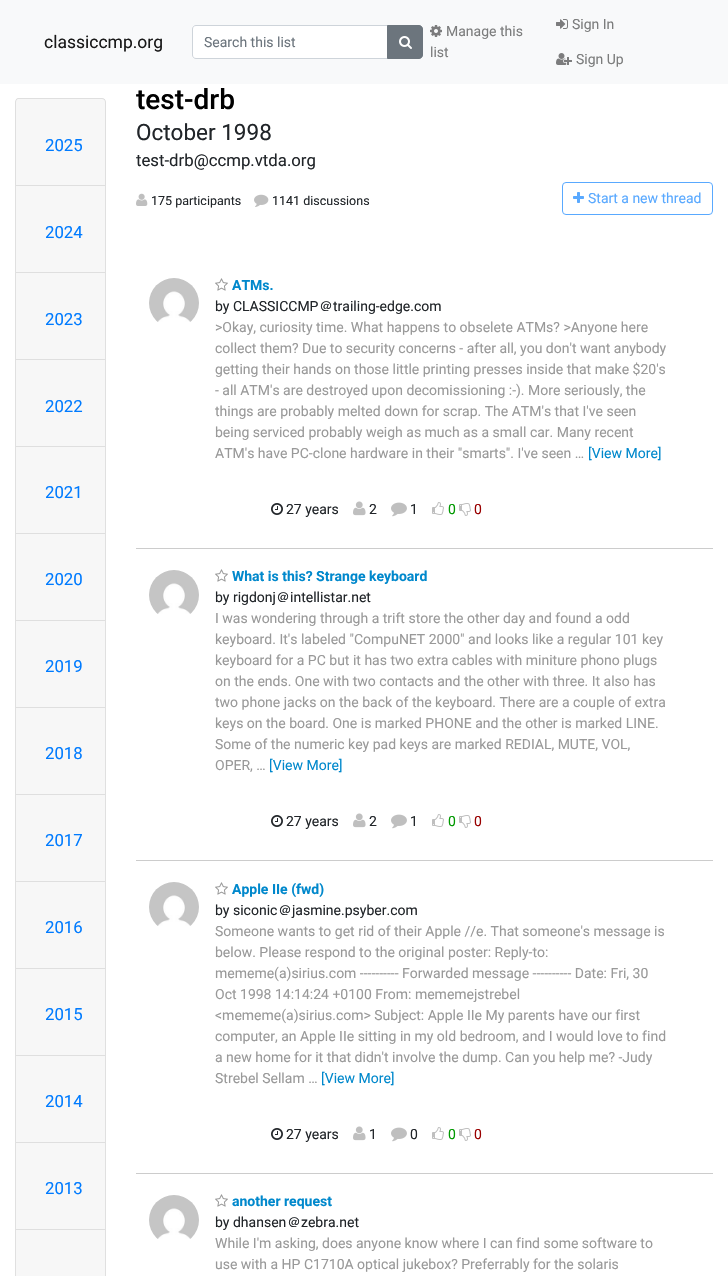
void draw(SkCanvas* canvas) {
    SkPaint paint;
    paint.setAntiAlias(true);
    auto face = [&](const char* family, int weight, float size, bool italic = false) {
        SkFontStyle style(weight, SkFontStyle::kNormal_Width,
            italic ? SkFontStyle::kItalic_Slant : SkFontStyle::kUpright_Slant);
        SkFont result(fontMgr->matchFamilyStyle(family, style), size);
        result.setSubpixel(true);
        return result;
    };
    auto write = [&](const char* s, float x, float y, const SkFont& font, SkColor color) {
        SkPaint ink(SkColor4f::FromColor(color));
        ink.setAntiAlias(true);
        canvas->drawString(s, x, y, font, ink);
    };
    auto block = [&](float x, float y, float w, float h, SkColor color) {
        SkPaint ink(SkColor4f::FromColor(color));
        ink.setAntiAlias(true);
        canvas->drawRect(SkRect::MakeXYWH(x, y, w, h), ink);
    };
    auto paste = [&](const char* path, float x, float y, float w, float h) {
        auto image = SkImages::DeferredFromEncodedData(SkData::MakeFromFileName(path));
        canvas->drawImageRect(image, SkRect::MakeXYWH(x, y, w, h), SkSamplingOptions());
    };
    canvas->clear(SK_ColorWHITE);
    block(0, 0, 728, 84, SkColorSetRGB(248, 249, 250));
    auto kFont1 = face("Roboto", 400, 17.5f);
    write("classiccmp.org", 44, 48, kFont1, SkColorSetRGB(25, 25, 25));
    paint.setColor(SK_ColorWHITE);
    canvas->drawPath(SkPathBuilder().moveTo(195.5f, 26).lineTo(387, 26).lineTo(387, 58).lineTo(195.5f, 58).cubicTo(194, 58, 193, 57, 193, 55.5f).lineTo(193, 28.5f).cubicTo(193, 27, 194, 26, 195.5f, 26).close().detach(), paint);
    paint.setStyle(SkPaint::kStroke_Style);
    paint.setStrokeWidth(1);
    paint.setColor(SkColorSetRGB(206, 212, 218));
    canvas->drawPath(SkPathBuilder().moveTo(196, 25.5f).lineTo(387.5f, 25.5f).lineTo(387.5f, 58.5f).lineTo(196, 58.5f).cubicTo(194, 58.5f, 192.5f, 57, 192.5f, 55).lineTo(192.5f, 29).cubicTo(192.5f, 27, 194, 25.5f, 196, 25.5f).close().detach(), paint);
    auto kFont2 = face("Roboto", 400, 14);
    write("Search this list", 204, 47, kFont2, SkColorSetRGB(108, 117, 125));
    paint.setStyle(SkPaint::kFill_Style);
    paint.setColor(SkColorSetRGB(108, 117, 125));
    canvas->drawPath(SkPathBuilder().moveTo(387.5f, 25.5f).lineTo(419, 25.5f).cubicTo(421, 25.5f, 422.5f, 27, 422.5f, 29).lineTo(422.5f, 55).cubicTo(422.5f, 57, 421, 58.5f, 419, 58.5f).lineTo(387.5f, 58.5f).close().detach(), paint);
    paint.setStyle(SkPaint::kStroke_Style);
    canvas->drawPath(SkPathBuilder().moveTo(387.5f, 25.5f).lineTo(419, 25.5f).cubicTo(421, 25.5f, 422.5f, 27, 422.5f, 29).lineTo(422.5f, 55).cubicTo(422.5f, 57, 421, 58.5f, 419, 58.5f).lineTo(387.5f, 58.5f).close().detach(), paint);
    paste("pic1.png", 399, 36, 13, 13);
    paste("pic2.png", 430, 25, 12, 12);
    write("Manage this", 446, 36, kFont2, SkColorSetRGB(124, 125, 125));
    write("list", 430, 57, kFont2, SkColorSetRGB(124, 125, 125));
    paste("pic3.png", 556, 19, 12, 10);
    write("Sign In", 572, 29, kFont2, SkColorSetRGB(124, 125, 125));
    paste("pic4.png", 556, 53, 16, 12);
    write("Sign Up", 576, 64, kFont2, SkColorSetRGB(124, 125, 125));
    paint.setStyle(SkPaint::kFill_Style);
    paint.setColor(SkColorSetRGB(223, 223, 223));
    canvas->drawPath(SkPathBuilder(SkPathFillType::kEvenOdd).moveTo(18, 98).lineTo(102, 98).cubicTo(104, 98, 106, 100, 106, 102).lineTo(106, 185).lineTo(15, 185).lineTo(15, 102).cubicTo(15, 100, 17, 98, 18, 98).close().moveTo(18, 99).lineTo(102, 99).cubicTo(104, 99, 105, 100, 105, 102).lineTo(105, 185).lineTo(16, 185).lineTo(16, 102).cubicTo(16, 100, 17, 99, 18, 99).close().detach(), paint);
    block(16, 99, 89, 86, SkColorSetARGB(8, 0, 0, 0));
    auto kFont3 = face("Roboto", 400, 16.75f);
    write("2025", 45, 151, kFont3, SkColorSetRGB(0, 123, 255));
    canvas->drawPath(SkPathBuilder().moveTo(15, 185).lineTo(106, 185).lineTo(105, 186).lineTo(16, 186).close().detach(), paint);
    paint.setColor(SkColorSetARGB(31, 0, 0, 0));
    canvas->drawPath(SkPathBuilder().moveTo(106, 185).lineTo(106, 272).lineTo(105, 272).lineTo(105, 186).close().detach(), paint);
    canvas->drawPath(SkPathBuilder().moveTo(15, 272).lineTo(15, 185).lineTo(16, 186).lineTo(16, 272).close().detach(), paint);
    block(16, 186, 89, 86, SkColorSetRGB(247, 247, 247));
    write("2024", 45, 238, kFont3, SkColorSetRGB(0, 123, 255));
    paint.setColor(SkColorSetRGB(223, 223, 223));
    canvas->drawPath(SkPathBuilder().moveTo(15, 272).lineTo(106, 272).lineTo(105, 273).lineTo(16, 273).close().detach(), paint);
    paint.setColor(SkColorSetARGB(31, 0, 0, 0));
    canvas->drawPath(SkPathBuilder().moveTo(106, 272).lineTo(106, 359).lineTo(105, 359).lineTo(105, 273).close().detach(), paint);
    canvas->drawPath(SkPathBuilder().moveTo(15, 359).lineTo(15, 272).lineTo(16, 273).lineTo(16, 359).close().detach(), paint);
    block(16, 273, 89, 86, SkColorSetRGB(247, 247, 247));
    write("2023", 45, 325, kFont3, SkColorSetRGB(0, 123, 255));
    paint.setColor(SkColorSetRGB(223, 223, 223));
    canvas->drawPath(SkPathBuilder().moveTo(15, 359).lineTo(106, 359).lineTo(105, 360).lineTo(16, 360).close().detach(), paint);
    paint.setColor(SkColorSetARGB(31, 0, 0, 0));
    canvas->drawPath(SkPathBuilder().moveTo(106, 359).lineTo(106, 446).lineTo(105, 446).lineTo(105, 360).close().detach(), paint);
    canvas->drawPath(SkPathBuilder().moveTo(15, 446).lineTo(15, 359).lineTo(16, 360).lineTo(16, 446).close().detach(), paint);
    block(16, 360, 89, 86, SkColorSetRGB(247, 247, 247));
    write("2022", 45, 412, kFont3, SkColorSetRGB(0, 123, 255));
    paint.setColor(SkColorSetRGB(223, 223, 223));
    canvas->drawPath(SkPathBuilder().moveTo(15, 446).lineTo(106, 446).lineTo(105, 447).lineTo(16, 447).close().detach(), paint);
    paint.setColor(SkColorSetARGB(31, 0, 0, 0));
    canvas->drawPath(SkPathBuilder().moveTo(106, 446).lineTo(106, 533).lineTo(105, 533).lineTo(105, 447).close().detach(), paint);
    canvas->drawPath(SkPathBuilder().moveTo(15, 533).lineTo(15, 446).lineTo(16, 447).lineTo(16, 533).close().detach(), paint);
    block(16, 447, 89, 86, SkColorSetRGB(247, 247, 247));
    write("2021", 45, 498, kFont3, SkColorSetRGB(0, 123, 255));
    paint.setColor(SkColorSetRGB(223, 223, 223));
    canvas->drawPath(SkPathBuilder().moveTo(15, 533).lineTo(106, 533).lineTo(105, 534).lineTo(16, 534).close().detach(), paint);
    paint.setColor(SkColorSetARGB(31, 0, 0, 0));
    canvas->drawPath(SkPathBuilder().moveTo(106, 533).lineTo(106, 620).lineTo(105, 620).lineTo(105, 534).close().detach(), paint);
    canvas->drawPath(SkPathBuilder().moveTo(15, 620).lineTo(15, 533).lineTo(16, 534).lineTo(16, 620).close().detach(), paint);
    block(16, 534, 89, 86, SkColorSetRGB(247, 247, 247));
    write("2020", 45, 585, kFont3, SkColorSetRGB(0, 123, 255));
    paint.setColor(SkColorSetRGB(223, 223, 223));
    canvas->drawPath(SkPathBuilder().moveTo(15, 620).lineTo(106, 620).lineTo(105, 621).lineTo(16, 621).close().detach(), paint);
    paint.setColor(SkColorSetARGB(31, 0, 0, 0));
    canvas->drawPath(SkPathBuilder().moveTo(106, 620).lineTo(106, 707).lineTo(105, 707).lineTo(105, 621).close().detach(), paint);
    canvas->drawPath(SkPathBuilder().moveTo(15, 707).lineTo(15, 620).lineTo(16, 621).lineTo(16, 707).close().detach(), paint);
    block(16, 621, 89, 86, SkColorSetRGB(247, 247, 247));
    write("2019", 45, 672, kFont3, SkColorSetRGB(0, 123, 255));
    paint.setColor(SkColorSetRGB(223, 223, 223));
    canvas->drawPath(SkPathBuilder().moveTo(15, 707).lineTo(106, 707).lineTo(105, 708).lineTo(16, 708).close().detach(), paint);
    paint.setColor(SkColorSetARGB(31, 0, 0, 0));
    canvas->drawPath(SkPathBuilder().moveTo(106, 707).lineTo(106, 794).lineTo(105, 794).lineTo(105, 708).close().detach(), paint);
    canvas->drawPath(SkPathBuilder().moveTo(15, 794).lineTo(15, 707).lineTo(16, 708).lineTo(16, 794).close().detach(), paint);
    block(16, 708, 89, 86, SkColorSetRGB(247, 247, 247));
    write("2018", 45, 759, kFont3, SkColorSetRGB(0, 123, 255));
    paint.setColor(SkColorSetRGB(223, 223, 223));
    canvas->drawPath(SkPathBuilder().moveTo(15, 794).lineTo(106, 794).lineTo(105, 795).lineTo(16, 795).close().detach(), paint);
    paint.setColor(SkColorSetARGB(31, 0, 0, 0));
    canvas->drawPath(SkPathBuilder().moveTo(106, 794).lineTo(106, 881).lineTo(105, 881).lineTo(105, 795).close().detach(), paint);
    canvas->drawPath(SkPathBuilder().moveTo(15, 881).lineTo(15, 794).lineTo(16, 795).lineTo(16, 881).close().detach(), paint);
    block(16, 795, 89, 86, SkColorSetRGB(247, 247, 247));
    write("2017", 45, 846, kFont3, SkColorSetRGB(0, 123, 255));
    paint.setColor(SkColorSetRGB(223, 223, 223));
    canvas->drawPath(SkPathBuilder().moveTo(15, 881).lineTo(106, 881).lineTo(105, 882).lineTo(16, 882).close().detach(), paint);
    paint.setColor(SkColorSetARGB(31, 0, 0, 0));
    canvas->drawPath(SkPathBuilder().moveTo(106, 881).lineTo(106, 968).lineTo(105, 968).lineTo(105, 882).close().detach(), paint);
    canvas->drawPath(SkPathBuilder().moveTo(15, 968).lineTo(15, 881).lineTo(16, 882).lineTo(16, 968).close().detach(), paint);
    block(16, 882, 89, 86, SkColorSetRGB(247, 247, 247));
    write("2016", 45, 933, kFont3, SkColorSetRGB(0, 123, 255));
    paint.setColor(SkColorSetRGB(223, 223, 223));
    canvas->drawPath(SkPathBuilder().moveTo(15, 968).lineTo(106, 968).lineTo(105, 969).lineTo(16, 969).close().detach(), paint);
    paint.setColor(SkColorSetARGB(31, 0, 0, 0));
    canvas->drawPath(SkPathBuilder().moveTo(106, 968).lineTo(106, 1055).lineTo(105, 1055).lineTo(105, 969).close().detach(), paint);
    canvas->drawPath(SkPathBuilder().moveTo(15, 1055).lineTo(15, 968).lineTo(16, 969).lineTo(16, 1055).close().detach(), paint);
    block(16, 969, 89, 86, SkColorSetRGB(247, 247, 247));
    write("2015", 45, 1020, kFont3, SkColorSetRGB(0, 123, 255));
    paint.setColor(SkColorSetRGB(223, 223, 223));
    canvas->drawPath(SkPathBuilder().moveTo(15, 1055).lineTo(106, 1055).lineTo(105, 1056).lineTo(16, 1056).close().detach(), paint);
    paint.setColor(SkColorSetARGB(31, 0, 0, 0));
    canvas->drawPath(SkPathBuilder().moveTo(106, 1055).lineTo(106, 1142).lineTo(105, 1142).lineTo(105, 1056).close().detach(), paint);
    canvas->drawPath(SkPathBuilder().moveTo(15, 1142).lineTo(15, 1055).lineTo(16, 1056).lineTo(16, 1142).close().detach(), paint);
    block(16, 1056, 89, 86, SkColorSetRGB(247, 247, 247));
    write("2014", 45, 1107, kFont3, SkColorSetRGB(0, 123, 255));
    paint.setColor(SkColorSetRGB(223, 223, 223));
    canvas->drawPath(SkPathBuilder().moveTo(15, 1142).lineTo(106, 1142).lineTo(105, 1143).lineTo(16, 1143).close().detach(), paint);
    paint.setColor(SkColorSetARGB(31, 0, 0, 0));
    canvas->drawPath(SkPathBuilder().moveTo(106, 1142).lineTo(106, 1229).lineTo(105, 1229).lineTo(105, 1143).close().detach(), paint);
    canvas->drawPath(SkPathBuilder().moveTo(15, 1229).lineTo(15, 1142).lineTo(16, 1143).lineTo(16, 1229).close().detach(), paint);
    block(16, 1143, 89, 86, SkColorSetRGB(247, 247, 247));
    write("2013", 45, 1194, kFont3, SkColorSetRGB(0, 123, 255));
    paint.setColor(SkColorSetRGB(223, 223, 223));
    canvas->drawPath(SkPathBuilder().moveTo(15, 1229).lineTo(106, 1229).lineTo(105, 1230).lineTo(16, 1230).close().detach(), paint);
    paint.setColor(SkColorSetARGB(31, 0, 0, 0));
    canvas->drawPath(SkPathBuilder().moveTo(106, 1229).lineTo(106, 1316).lineTo(105, 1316).lineTo(105, 1230).close().detach(), paint);
    canvas->drawPath(SkPathBuilder().moveTo(15, 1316).lineTo(15, 1229).lineTo(16, 1230).lineTo(16, 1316).close().detach(), paint);
    block(16, 1230, 89, 46, SkColorSetRGB(247, 247, 247));
    auto kFont4 = face("Roboto", 500, 28);
    write("test-drb", 136, 109, kFont4, SK_ColorBLACK);
    auto kFont5 = face("Roboto", 400, 22.5f);
    write("October 1998", 136, 140, kFont5, SkColorSetRGB(33, 37, 41));
    write("test-drb@ccmp.vtda.org", 136, 166, kFont3, SkColorSetRGB(33, 37, 41));
    paste("pic5.png", 136, 193, 12, 13);
    auto kFont6 = face("Roboto", 400, 12.5f);
    write("175 participants", 151, 205, kFont6, SkColorSetRGB(33, 37, 41));
    paste("pic6.png", 254, 194, 15, 13);
    write("1141 discussions", 272, 205, kFont6, SkColorSetRGB(33, 37, 41));
    paint.setStyle(SkPaint::kStroke_Style);
    paint.setColor(SkColorSetRGB(89, 169, 255));
    canvas->drawRoundRect(SkRect::MakeXYWH(562.5f, 182.5f, 150, 32), 3.5f, 3.5f, paint);
    paste("pic7.png", 573, 192, 11, 11);
    write("Start a new thread", 588, 203, kFont2, SkColorSetRGB(89, 169, 255));
    block(136, 548, 577, 1, SkColorSetRGB(204, 204, 204));
    paste("pic8.png", 149, 278, 50, 44);
    paste("pic9.png", 215, 278, 13, 13);
    auto kFont7 = face("Roboto", 700, 14);
    write("ATMs.", 232, 290, kFont7, SkColorSetRGB(0, 136, 204));
    write("by CLASSICCMP", 215, 311, kFont2, SkColorSetRGB(33, 37, 41));
    auto kFont8 = face("WenQuanYi Zen Hei", 500, 14);
    write("＠", 319, 311, kFont8, SkColorSetRGB(33, 37, 41));
    write("trailing-edge.com", 333, 311, kFont2, SkColorSetRGB(33, 37, 41));
    write(">Okay, curiosity time. What happens to obselete ATMs? >Anyone here", 215, 332, kFont2, SkColorSetRGB(153, 153, 153));
    write("collect them? Due to security concerns - after all, you don't want anybody", 215, 353, kFont2, SkColorSetRGB(153, 153, 153));
    write("getting their hands on those little printing presses inside that make $20's", 215, 374, kFont2, SkColorSetRGB(153, 153, 153));
    write("- all ATM's are destroyed upon decomissioning :-). More seriously, the", 215, 395, kFont2, SkColorSetRGB(153, 153, 153));
    write("things are probably melted down for scrap. The ATM's that I've seen", 215, 416, kFont2, SkColorSetRGB(153, 153, 153));
    write("being serviced probably weigh as much as a small car. Many recent", 215, 437, kFont2, SkColorSetRGB(153, 153, 153));
    write("ATM's have PC-clone hardware in their \"smarts\". I've seen …", 215, 458, kFont2, SkColorSetRGB(153, 153, 153));
    write("[View More]", 588, 458, kFont2, SkColorSetRGB(0, 136, 204));
    paste("pic10.png", 271, 503, 12, 12);
    write("27 years", 286, 514, kFont2, SkColorSetRGB(33, 37, 41));
    paste("pic11.png", 353, 501, 13, 15);
    write("2", 369, 514, kFont2, SkColorSetRGB(33, 37, 41));
    paste("pic12.png", 391, 502, 16, 15);
    write("1", 410, 514, kFont2, SkColorSetRGB(33, 37, 41));
    paste("pic13.png", 432, 502, 12, 13);
    write("0", 448, 514, kFont2, SkColorSetRGB(0, 153, 0));
    paste("pic14.png", 459, 503, 12, 13);
    write("0", 474, 514, kFont2, SkColorSetRGB(153, 0, 0));
    block(136, 860, 577, 1, SkColorSetRGB(204, 204, 204));
    paste("pic8.png", 149, 570, 50, 44);
    paste("pic9.png", 215, 569, 13, 13);
    write("What is this? Strange keyboard", 232, 581, kFont7, SkColorSetRGB(0, 136, 204));
    write("by rigdonj", 215, 602, kFont2, SkColorSetRGB(33, 37, 41));
    write("＠", 276, 602, kFont8, SkColorSetRGB(33, 37, 41));
    write("intellistar.net", 290, 602, kFont2, SkColorSetRGB(33, 37, 41));
    write("I was wondering through a trift store the other day and found a odd", 215, 623, kFont2, SkColorSetRGB(153, 153, 153));
    write("keyboard. It's labeled \"CompuNET 2000\" and looks like a regular 101 key", 215, 644, kFont2, SkColorSetRGB(153, 153, 153));
    write("keyboard for a PC but it has two extra cables with miniture phono plugs", 215, 665, kFont2, SkColorSetRGB(153, 153, 153));
    write("on the ends. One with two contacts and the other with three. It also has", 215, 686, kFont2, SkColorSetRGB(153, 153, 153));
    write("two phone jacks on the back of the keyboard. There are a couple of extra", 215, 707, kFont2, SkColorSetRGB(153, 153, 153));
    write("keys on the board. One is marked PHONE and the other is marked LINE.", 215, 728, kFont2, SkColorSetRGB(153, 153, 153));
    write("Some of the numeric key pad keys are marked REDIAL, MUTE, VOL,", 215, 749, kFont2, SkColorSetRGB(153, 153, 153));
    write("OPER, …", 215, 770, kFont2, SkColorSetRGB(153, 153, 153));
    write("[View More]", 269, 770, kFont2, SkColorSetRGB(0, 136, 204));
    paste("pic10.png", 271, 815, 12, 12);
    write("27 years", 286, 826, kFont2, SkColorSetRGB(33, 37, 41));
    paste("pic11.png", 353, 813, 13, 15);
    write("2", 369, 826, kFont2, SkColorSetRGB(33, 37, 41));
    paste("pic12.png", 391, 814, 16, 15);
    write("1", 410, 826, kFont2, SkColorSetRGB(33, 37, 41));
    paste("pic13.png", 432, 814, 12, 13);
    write("0", 448, 826, kFont2, SkColorSetRGB(0, 153, 0));
    paste("pic14.png", 459, 815, 12, 13);
    write("0", 474, 826, kFont2, SkColorSetRGB(153, 0, 0));
    block(136, 1173, 577, 1, SkColorSetRGB(204, 204, 204));
    paste("pic8.png", 149, 882, 50, 44);
    paste("pic9.png", 215, 882, 13, 13);
    write("Apple IIe (fwd)", 232, 894, kFont7, SkColorSetRGB(0, 136, 204));
    write("by siconic", 215, 915, kFont2, SkColorSetRGB(33, 37, 41));
    write("＠", 278, 915, kFont8, SkColorSetRGB(33, 37, 41));
    write("jasmine.psyber.com", 292, 915, kFont2, SkColorSetRGB(33, 37, 41));
    write("Someone wants to get rid of their Apple //e. That someone's message is", 215, 936, kFont2, SkColorSetRGB(153, 153, 153));
    write("below. Please respond to the original poster: Reply-to:", 215, 957, kFont2, SkColorSetRGB(153, 153, 153));
    write("mememe(a)sirius.com ---------- Forwarded message ---------- Date: Fri, 30", 215, 978, kFont2, SkColorSetRGB(153, 153, 153));
    write("Oct 1998 14:14:24 +0100 From: mememejstrebel", 215, 999, kFont2, SkColorSetRGB(153, 153, 153));
    write("<mememe(a)sirius.com> Subject: Apple IIe My parents have our first", 215, 1020, kFont2, SkColorSetRGB(153, 153, 153));
    write("computer, an Apple IIe sitting in my old bedroom, and I would love to find", 215, 1041, kFont2, SkColorSetRGB(153, 153, 153));
    write("a new home for it that didn't involve the dump. Can you help me? -Judy", 215, 1062, kFont2, SkColorSetRGB(153, 153, 153));
    write("Strebel Sellam …", 215, 1083, kFont2, SkColorSetRGB(153, 153, 153));
    write("[View More]", 321, 1083, kFont2, SkColorSetRGB(0, 136, 204));
    paste("pic10.png", 271, 1128, 12, 12);
    write("27 years", 286, 1139, kFont2, SkColorSetRGB(33, 37, 41));
    paste("pic11.png", 353, 1126, 13, 15);
    write("1", 369, 1139, kFont2, SkColorSetRGB(33, 37, 41));
    paste("pic12.png", 391, 1127, 16, 15);
    write("0", 410, 1139, kFont2, SkColorSetRGB(33, 37, 41));
    paste("pic13.png", 432, 1127, 12, 13);
    write("0", 448, 1139, kFont2, SkColorSetRGB(0, 153, 0));
    paste("pic14.png", 459, 1128, 12, 13);
    write("0", 474, 1139, kFont2, SkColorSetRGB(153, 0, 0));
    paste("pic8.png", 149, 1195, 50, 44);
    paste("pic9.png", 215, 1194, 13, 13);
    write("another request", 232, 1206, kFont7, SkColorSetRGB(0, 136, 204));
    write("by dhansen", 215, 1227, kFont2, SkColorSetRGB(33, 37, 41));
    write("＠", 287, 1227, kFont8, SkColorSetRGB(33, 37, 41));
    write("zebra.net", 301, 1227, kFont2, SkColorSetRGB(33, 37, 41));
    write("While I'm asking, does anyone know where I can find some software to", 215, 1248, kFont2, SkColorSetRGB(153, 153, 153));
    write("use with a HP C1710A optical jukebox? Preferrably for the solaris", 215, 1269, kFont2, SkColorSetRGB(153, 153, 153));
}
